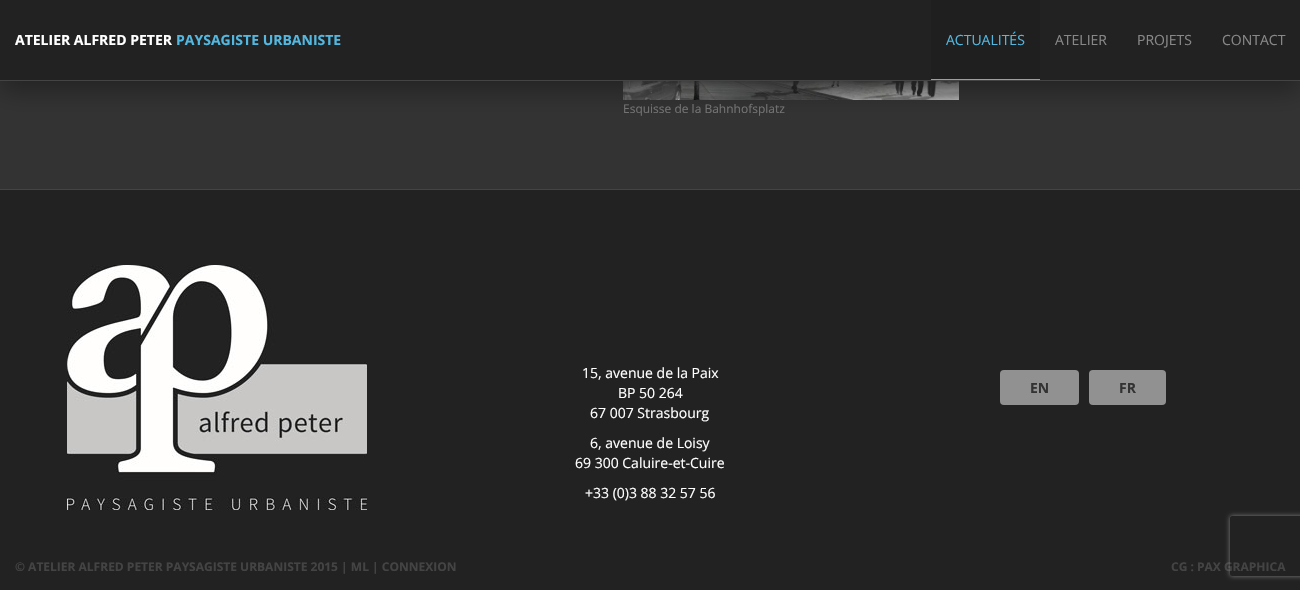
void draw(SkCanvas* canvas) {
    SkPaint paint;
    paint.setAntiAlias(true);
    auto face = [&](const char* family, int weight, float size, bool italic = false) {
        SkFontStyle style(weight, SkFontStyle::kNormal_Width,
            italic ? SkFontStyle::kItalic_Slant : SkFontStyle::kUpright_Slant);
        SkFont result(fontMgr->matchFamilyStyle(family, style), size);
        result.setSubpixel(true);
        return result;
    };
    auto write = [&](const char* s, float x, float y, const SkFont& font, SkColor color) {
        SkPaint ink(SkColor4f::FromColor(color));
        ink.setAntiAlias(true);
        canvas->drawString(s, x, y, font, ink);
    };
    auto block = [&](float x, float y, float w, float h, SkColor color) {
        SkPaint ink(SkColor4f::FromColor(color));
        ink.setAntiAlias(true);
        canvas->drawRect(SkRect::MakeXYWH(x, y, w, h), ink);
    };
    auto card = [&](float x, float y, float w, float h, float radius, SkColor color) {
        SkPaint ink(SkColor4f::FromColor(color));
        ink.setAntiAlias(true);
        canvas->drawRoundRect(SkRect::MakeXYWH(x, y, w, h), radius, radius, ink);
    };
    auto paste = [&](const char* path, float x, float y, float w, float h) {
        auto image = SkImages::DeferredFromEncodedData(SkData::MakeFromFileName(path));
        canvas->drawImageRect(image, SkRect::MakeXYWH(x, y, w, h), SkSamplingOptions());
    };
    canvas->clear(SkColorSetRGB(51, 51, 51));
    paste("pic1.png", 623, 81, 336, 19);
    paint.setColor(SkColorSetRGB(34, 34, 34));
    paint.setMaskFilter(SkMaskFilter::MakeBlur(kNormal_SkBlurStyle, 12.5f));
    canvas->drawRect(SkRect::MakeXYWH(0, 10, 1300, 81), paint);
    paint.setMaskFilter(nullptr);
    block(0, 0, 1300, 80, SkColorSetRGB(34, 34, 34));
    block(0, 80, 1300, 1, SkColorSetRGB(68, 68, 68));
    auto kFont1 = face("Open Sans", 700, 14);
    write("ATELIER ALFRED PETER", 15, 45, kFont1, SK_ColorWHITE);
    write("PAYSAGISTE URBANISTE", 176, 45, kFont1, SkColorSetRGB(83, 183, 223));
    block(931, 0, 109, 79, SkColorSetRGB(31, 31, 31));
    auto kFont2 = face("Open Sans", 400, 14);
    write("ACTUALITÉS", 946, 45, kFont2, SkColorSetRGB(83, 183, 223));
    block(931, 79, 109, 1, SkColorSetRGB(83, 183, 223));
    write("ATELIER", 1055, 45, kFont2, SkColorSetRGB(136, 136, 136));
    write("PROJETS", 1137, 45, kFont2, SkColorSetRGB(136, 136, 136));
    write("CONTACT", 1222, 45, kFont2, SkColorSetRGB(136, 136, 136));
    auto kFont3 = face("Open Sans", 400, 12);
    write("Esquisse de la Bahnhofsplatz", 623, 113, kFont3, SkColorSetRGB(115, 115, 115));
    block(0, 190, 1300, 400, SkColorSetRGB(34, 34, 34));
    block(0, 189, 1300, 1, SkColorSetRGB(68, 68, 68));
    paste("pic2.png", 67, 265, 300, 245);
    write("15, avenue de la Paix", 582, 378, kFont2, SK_ColorWHITE);
    write("BP 50 264", 618, 398, kFont2, SK_ColorWHITE);
    write("67 007 Strasbourg", 590, 418, kFont2, SK_ColorWHITE);
    write("6, avenue de Loisy", 590, 448, kFont2, SK_ColorWHITE);
    write("69 300 Caluire-et-Cuire", 575, 468, kFont2, SK_ColorWHITE);
    write("+33 (0)3 88 32 57 56", 585, 498, kFont2, SK_ColorWHITE);
    card(1000, 370, 79, 35, 4, SkColorSetRGB(145, 145, 145));
    write("EN", 1030, 393, kFont1, SkColorSetRGB(51, 51, 51));
    card(1089, 370, 77, 35, 4, SkColorSetRGB(145, 145, 145));
    write("FR", 1119, 393, kFont1, SkColorSetRGB(51, 51, 51));
    auto kFont4 = face("Open Sans", 700, 12);
    write("© ATELIER ALFRED PETER PAYSAGISTE URBANISTE 2015 | ML | CONNEXION", 15, 571, kFont4, SkColorSetRGB(68, 68, 68));
    write("CG : PAX GRAPHICA", 1171, 571, kFont4, SkColorSetRGB(68, 68, 68));
    canvas->save();
    canvas->clipPath(SkPathBuilder(SkPathFillType::kEvenOdd).moveTo(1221, 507).lineTo(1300, 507).lineTo(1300, 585).lineTo(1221, 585).close().moveTo(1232, 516).lineTo(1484, 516).cubicTo(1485, 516, 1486, 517, 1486, 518).lineTo(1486, 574).cubicTo(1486, 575, 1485, 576, 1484, 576).lineTo(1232, 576).cubicTo(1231, 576, 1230, 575, 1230, 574).lineTo(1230, 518).cubicTo(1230, 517, 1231, 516, 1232, 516).close().detach(), true);
    paint.setColor(SkColorSetRGB(128, 128, 128));
    paint.setMaskFilter(SkMaskFilter::MakeBlur(kNormal_SkBlurStyle, 2.5f));
    canvas->drawRoundRect(SkRect::MakeXYWH(1230, 516, 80, 60), 2, 2, paint);
    paint.setMaskFilter(nullptr);
    canvas->restore();
}
